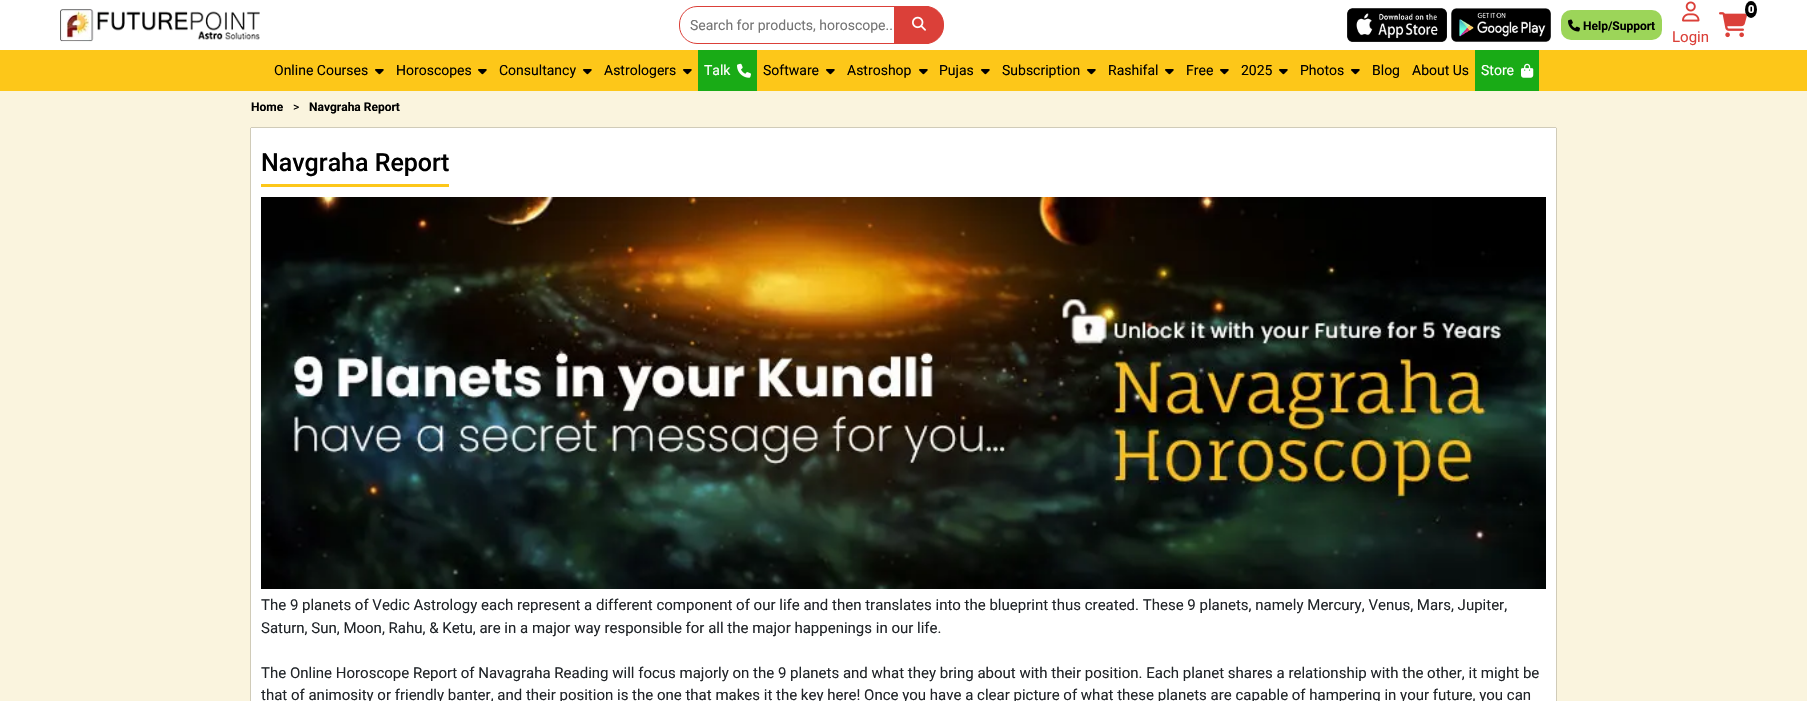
void draw(SkCanvas* canvas) {
    SkPaint paint;
    paint.setAntiAlias(true);
    auto face = [&](const char* family, int weight, float size, bool italic = false) {
        SkFontStyle style(weight, SkFontStyle::kNormal_Width,
            italic ? SkFontStyle::kItalic_Slant : SkFontStyle::kUpright_Slant);
        SkFont result(fontMgr->matchFamilyStyle(family, style), size);
        result.setSubpixel(true);
        return result;
    };
    auto write = [&](const char* s, float x, float y, const SkFont& font, SkColor color) {
        SkPaint ink(SkColor4f::FromColor(color));
        ink.setAntiAlias(true);
        canvas->drawString(s, x, y, font, ink);
    };
    auto block = [&](float x, float y, float w, float h, SkColor color) {
        SkPaint ink(SkColor4f::FromColor(color));
        ink.setAntiAlias(true);
        canvas->drawRect(SkRect::MakeXYWH(x, y, w, h), ink);
    };
    auto card = [&](float x, float y, float w, float h, float radius, SkColor color) {
        SkPaint ink(SkColor4f::FromColor(color));
        ink.setAntiAlias(true);
        canvas->drawRoundRect(SkRect::MakeXYWH(x, y, w, h), radius, radius, ink);
    };
    auto paste = [&](const char* path, float x, float y, float w, float h) {
        auto image = SkImages::DeferredFromEncodedData(SkData::MakeFromFileName(path));
        canvas->drawImageRect(image, SkRect::MakeXYWH(x, y, w, h), SkSamplingOptions());
    };
    canvas->clear(SkColorSetRGB(250, 244, 222));
    block(0, 0, 1807, 50, SK_ColorWHITE);
    paste("pic1.png", 60, 9, 200, 33);
    paint.setStyle(SkPaint::kStroke_Style);
    paint.setStrokeWidth(1);
    paint.setColor(SkColorSetRGB(219, 64, 57));
    canvas->drawPath(SkPathBuilder().moveTo(697, 6.5f).lineTo(928.5f, 6.5f).lineTo(928.5f, 43.5f).lineTo(697, 43.5f).cubicTo(687.5f, 43.5f, 679.5f, 35.5f, 679.5f, 26).lineTo(679.5f, 24).cubicTo(679.5f, 14.5f, 687.5f, 6.5f, 697, 6.5f).close().detach(), paint);
    auto kFont1 = face("Roboto", 400, 14);
    write("Search for products, horoscope..", 690, 30, kFont1, SkColorSetRGB(117, 117, 117));
    paint.setStyle(SkPaint::kFill_Style);
    canvas->drawPath(SkPathBuilder().moveTo(894.5f, 6.5f).lineTo(926, 6.5f).cubicTo(935.5f, 6.5f, 943.5f, 14.5f, 943.5f, 24).lineTo(943.5f, 26).cubicTo(943.5f, 35.5f, 935.5f, 43.5f, 926, 43.5f).lineTo(894.5f, 43.5f).close().detach(), paint);
    paint.setStyle(SkPaint::kStroke_Style);
    canvas->drawPath(SkPathBuilder().moveTo(894.5f, 6.5f).lineTo(926, 6.5f).cubicTo(935.5f, 6.5f, 943.5f, 14.5f, 943.5f, 24).lineTo(943.5f, 26).cubicTo(943.5f, 35.5f, 935.5f, 43.5f, 926, 43.5f).lineTo(894.5f, 43.5f).close().detach(), paint);
    paste("pic2.png", 912, 16, 14, 15);
    paste("pic3.png", 1347, 8, 100, 34);
    paste("pic4.png", 1451, 8, 100, 34);
    card(1561, 10, 101, 30, 10, SkColorSetRGB(156, 213, 89));
    paste("pic5.png", 1568, 19, 12, 13);
    auto kFont2 = face("Roboto", 700, 12);
    write("Help/Support", 1583, 30, kFont2, SK_ColorBLACK);
    paste("pic6.png", 1719, 12, 28, 26);
    paint.setStyle(SkPaint::kFill_Style);
    paint.setColor(SK_ColorBLACK);
    canvas->drawOval(SkRect::MakeXYWH(1745, 1, 12, 17), paint);
    auto kFont3 = face("Roboto", 900, 11);
    write("0", 1748, 13, kFont3, SK_ColorWHITE);
    paste("pic7.png", 1682, 1, 18, 21);
    auto kFont4 = face("Roboto", 400, 15);
    write("Login", 1672, 42, kFont4, SkColorSetRGB(219, 64, 57));
    block(0, 50, 1807, 41, SkColorSetRGB(253, 199, 25));
    write("Online Courses", 274, 75, kFont1, SK_ColorBLACK);
    paste("pic8.png", 375, 69, 9, 6);
    write("Horoscopes", 396, 75, kFont1, SK_ColorBLACK);
    paste("pic8.png", 478, 69, 9, 6);
    write("Consultancy", 499, 75, kFont1, SK_ColorBLACK);
    paste("pic8.png", 583, 69, 9, 6);
    write("Astrologers", 604, 75, kFont1, SK_ColorBLACK);
    paste("pic8.png", 683, 69, 9, 6);
    block(698, 50, 59, 41, SkColorSetRGB(25, 171, 22));
    write("Talk", 704, 75, kFont1, SK_ColorWHITE);
    paste("pic9.png", 737, 63, 14, 15);
    write("Software", 763, 75, kFont1, SK_ColorBLACK);
    paste("pic8.png", 826, 69, 9, 6);
    write("Astroshop", 847, 75, kFont1, SK_ColorBLACK);
    paste("pic8.png", 919, 69, 9, 6);
    write("Pujas", 939, 75, kFont1, SK_ColorBLACK);
    paste("pic8.png", 981, 69, 9, 6);
    write("Subscription", 1002, 75, kFont1, SK_ColorBLACK);
    paste("pic8.png", 1087, 69, 9, 6);
    write("Rashifal", 1108, 75, kFont1, SK_ColorBLACK);
    paste("pic8.png", 1165, 69, 9, 6);
    write("Free", 1186, 75, kFont1, SK_ColorBLACK);
    paste("pic8.png", 1220, 69, 9, 6);
    write("2025", 1241, 75, kFont1, SK_ColorBLACK);
    paste("pic8.png", 1279, 69, 9, 6);
    write("Photos", 1300, 75, kFont1, SK_ColorBLACK);
    paste("pic8.png", 1351, 69, 9, 6);
    write("Blog", 1372, 75, kFont1, SK_ColorBLACK);
    write("About Us", 1412, 75, kFont1, SK_ColorBLACK);
    block(1475, 50, 64, 41, SkColorSetRGB(25, 171, 22));
    write("Store", 1481, 75, kFont1, SK_ColorWHITE);
    paste("pic10.png", 1521, 63, 13, 15);
    write("Home", 251, 111, kFont2, SK_ColorBLACK);
    auto kFont5 = face("Roboto", 400, 12);
    write(">", 293, 111, kFont5, SK_ColorBLACK);
    write("Navgraha Report", 309, 111, kFont2, SK_ColorBLACK);
    paint.setMaskFilter(SkMaskFilter::MakeBlur(kNormal_SkBlurStyle, 0.5f));
    canvas->drawRect(SkRect::MakeXYWH(251, 128, 1305, 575), paint);
    paint.setMaskFilter(nullptr);
    block(251, 128, 1305, 573, SK_ColorWHITE);
    block(261, 184, 188, 3, SkColorSetRGB(253, 199, 25));
    auto kFont6 = face("Roboto", 500, 25);
    write("Navgraha Report", 261, 171, kFont6, SK_ColorBLACK);
    paste("pic11.png", 261, 197, 1285, 392);
    write("The 9 planets of Vedic Astrology each represent a different component of our life and then translates into the blueprint thus created. These 9 planets, namely Mercury, Venus, Mars, Jupiter,", 261, 610, kFont4, SkColorSetRGB(33, 37, 41));
    write("Saturn, Sun, Moon, Rahu, & Ketu, are in a major way responsible for all the major happenings in our life.", 261, 633, kFont4, SkColorSetRGB(33, 37, 41));
    write("The Online Horoscope Report of Navagraha Reading will focus majorly on the 9 planets and what they bring about with their position. Each planet shares a relationship with the other, it might be", 261, 678, kFont4, SkColorSetRGB(33, 37, 41));
    write("that of animosity or friendly banter, and their position is the one that makes it the key here! Once you have a clear picture of what these planets are capable of hampering in your future, you can", 261, 700, kFont4, SkColorSetRGB(33, 37, 41));
}
